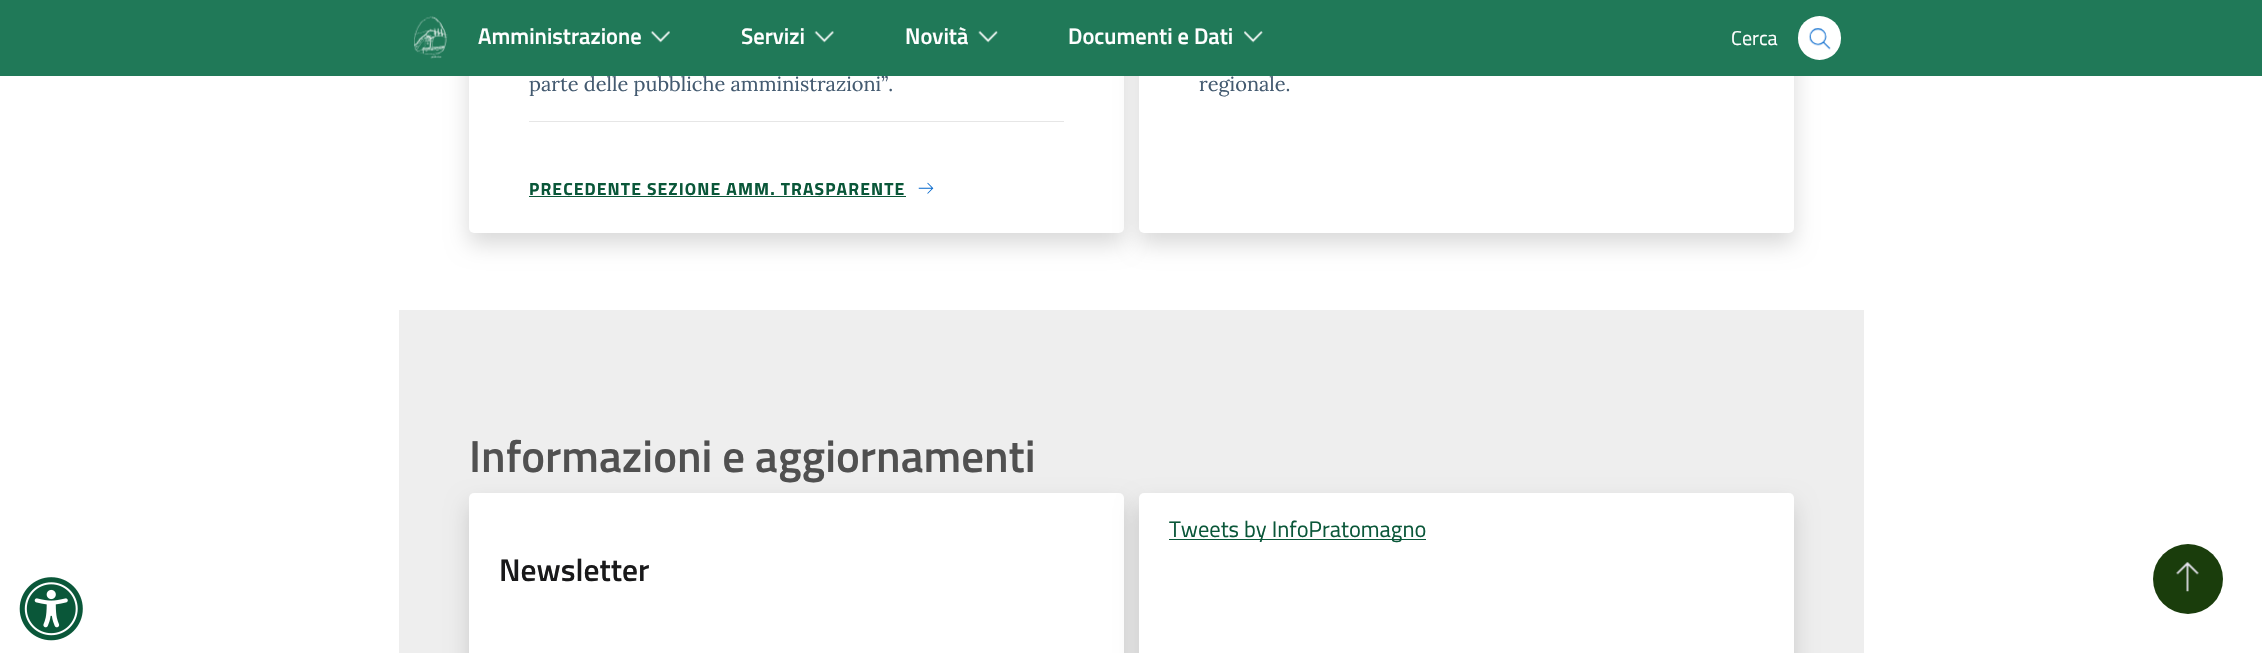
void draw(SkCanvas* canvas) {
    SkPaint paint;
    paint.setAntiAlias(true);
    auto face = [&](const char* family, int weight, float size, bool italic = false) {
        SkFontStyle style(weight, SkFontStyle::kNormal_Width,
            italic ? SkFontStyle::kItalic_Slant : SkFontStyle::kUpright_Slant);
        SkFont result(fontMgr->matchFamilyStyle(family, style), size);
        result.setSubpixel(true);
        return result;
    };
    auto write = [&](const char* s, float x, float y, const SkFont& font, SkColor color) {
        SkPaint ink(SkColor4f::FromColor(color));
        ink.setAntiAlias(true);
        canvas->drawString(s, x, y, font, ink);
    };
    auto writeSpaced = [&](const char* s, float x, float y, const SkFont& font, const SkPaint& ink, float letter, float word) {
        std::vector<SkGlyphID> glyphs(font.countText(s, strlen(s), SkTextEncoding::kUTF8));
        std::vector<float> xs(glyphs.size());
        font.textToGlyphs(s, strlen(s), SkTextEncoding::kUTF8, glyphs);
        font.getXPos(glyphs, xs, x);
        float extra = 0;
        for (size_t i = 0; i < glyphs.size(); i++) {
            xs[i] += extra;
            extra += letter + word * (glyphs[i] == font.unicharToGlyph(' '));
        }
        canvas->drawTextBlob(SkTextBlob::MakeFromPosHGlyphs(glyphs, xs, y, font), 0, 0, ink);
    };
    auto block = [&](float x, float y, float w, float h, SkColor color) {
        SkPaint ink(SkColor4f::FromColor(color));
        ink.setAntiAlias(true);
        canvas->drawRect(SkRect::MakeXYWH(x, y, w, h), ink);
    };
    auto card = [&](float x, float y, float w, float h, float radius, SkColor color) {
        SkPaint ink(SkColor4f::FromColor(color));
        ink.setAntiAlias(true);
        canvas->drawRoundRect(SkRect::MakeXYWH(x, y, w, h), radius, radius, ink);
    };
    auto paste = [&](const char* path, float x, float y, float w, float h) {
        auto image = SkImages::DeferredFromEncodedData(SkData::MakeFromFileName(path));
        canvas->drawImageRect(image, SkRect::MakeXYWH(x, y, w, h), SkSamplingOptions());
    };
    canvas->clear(SK_ColorWHITE);
    paint.setColor(SkColorSetARGB(38, 0, 0, 0));
    paint.setMaskFilter(SkMaskFilter::MakeBlur(kNormal_SkBlurStyle, 11));
    canvas->drawRoundRect(SkRect::MakeXYWH(469, -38, 655, 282), 5, 5, paint);
    paint.setMaskFilter(nullptr);
    card(469, -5, 655, 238, 5, SK_ColorWHITE);
    auto kFont1 = face("Lora", 400, 20);
    write("parte delle pubbliche amministrazioni”.", 529, 91, kFont1, SkColorSetRGB(67, 90, 112));
    paint.setMaskFilter(SkMaskFilter::MakeBlur(kNormal_SkBlurStyle, 11));
    canvas->drawRoundRect(SkRect::MakeXYWH(1139, -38, 655, 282), 5, 5, paint);
    paint.setMaskFilter(nullptr);
    card(1139, -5, 655, 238, 5, SK_ColorWHITE);
    write("regionale.", 1199, 91, kFont1, SkColorSetRGB(67, 90, 112));
    block(0, 0, 2262, 76, SkColorSetRGB(32, 121, 88));
    paste("pic1.png", 414, 16, 34, 43);
    auto kFont2 = face("Titillium Web", 600, 22.5f);
    write("Amministrazione", 478, 44, kFont2, SK_ColorWHITE);
    paste("pic2.png", 650, 31, 20, 12);
    write("Servizi", 741, 44, kFont2, SK_ColorWHITE);
    paste("pic3.png", 814, 31, 20, 12);
    write("Novità", 905, 44, kFont2, SK_ColorWHITE);
    paste("pic4.png", 978, 30, 20, 13);
    write("Documenti e Dati", 1068, 44, kFont2, SK_ColorWHITE);
    paste("pic5.png", 1244, 31, 19, 12);
    auto kFont3 = face("Titillium Web", 400, 20);
    write("Cerca", 1731, 45, kFont3, SK_ColorWHITE);
    card(1798, 16, 43, 44, 21.5f, SK_ColorWHITE);
    paste("pic6.png", 1809, 28, 22, 22);
    paste("pic7.png", 19, 577, 64, 64);
    block(529, 121, 535, 1, SkColorSetRGB(230, 230, 230));
    auto kFont4 = face("Titillium Web", 700, 17.5f);
    paint.setColor(SkColorSetRGB(10, 87, 57));
    writeSpaced("PRECEDENTE SEZIONE AMM. TRASPARENTE", 529, 195, kFont4, paint, 1.1f, 0);
    block(529, 196, 377, 1, SkColorSetRGB(10, 87, 57));
    paste("pic8.png", 918, 182, 16, 12);
    block(399, 310, 1465, 343, SkColorSetRGB(238, 238, 238));
    auto kFont5 = face("Titillium Web", 600, 45);
    write("Informazioni e aggiornamenti", 469, 472, kFont5, SkColorSetRGB(80, 80, 80));
    paint.setColor(SkColorSetARGB(38, 0, 0, 0));
    paint.setMaskFilter(SkMaskFilter::MakeBlur(kNormal_SkBlurStyle, 11));
    canvas->drawRoundRect(SkRect::MakeXYWH(469, 504, 655, 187), 5, 5, paint);
    paint.setMaskFilter(nullptr);
    card(469, 493, 655, 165, 5, SK_ColorWHITE);
    paint.setMaskFilter(SkMaskFilter::MakeBlur(kNormal_SkBlurStyle, 11));
    canvas->drawRoundRect(SkRect::MakeXYWH(1139, 504, 655, 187), 5, 5, paint);
    paint.setMaskFilter(nullptr);
    card(1139, 493, 655, 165, 5, SK_ColorWHITE);
    block(1169, 539, 257, 1, SkColorSetRGB(10, 87, 57));
    auto kFont6 = face("Titillium Web", 400, 22.5f);
    write("Tweets by InfoPratomagno", 1169, 537, kFont6, SkColorSetRGB(10, 87, 57));
    auto kFont7 = face("Titillium Web", 600, 31.5f);
    write("Newsletter", 499, 581, kFont7, SkColorSetRGB(25, 25, 26));
    paint.setColor(SkColorSetRGB(26, 61, 12));
    canvas->drawCircle(2188, 579, 35, paint);
    paste("pic9.png", 2176, 562, 23, 30);
}
